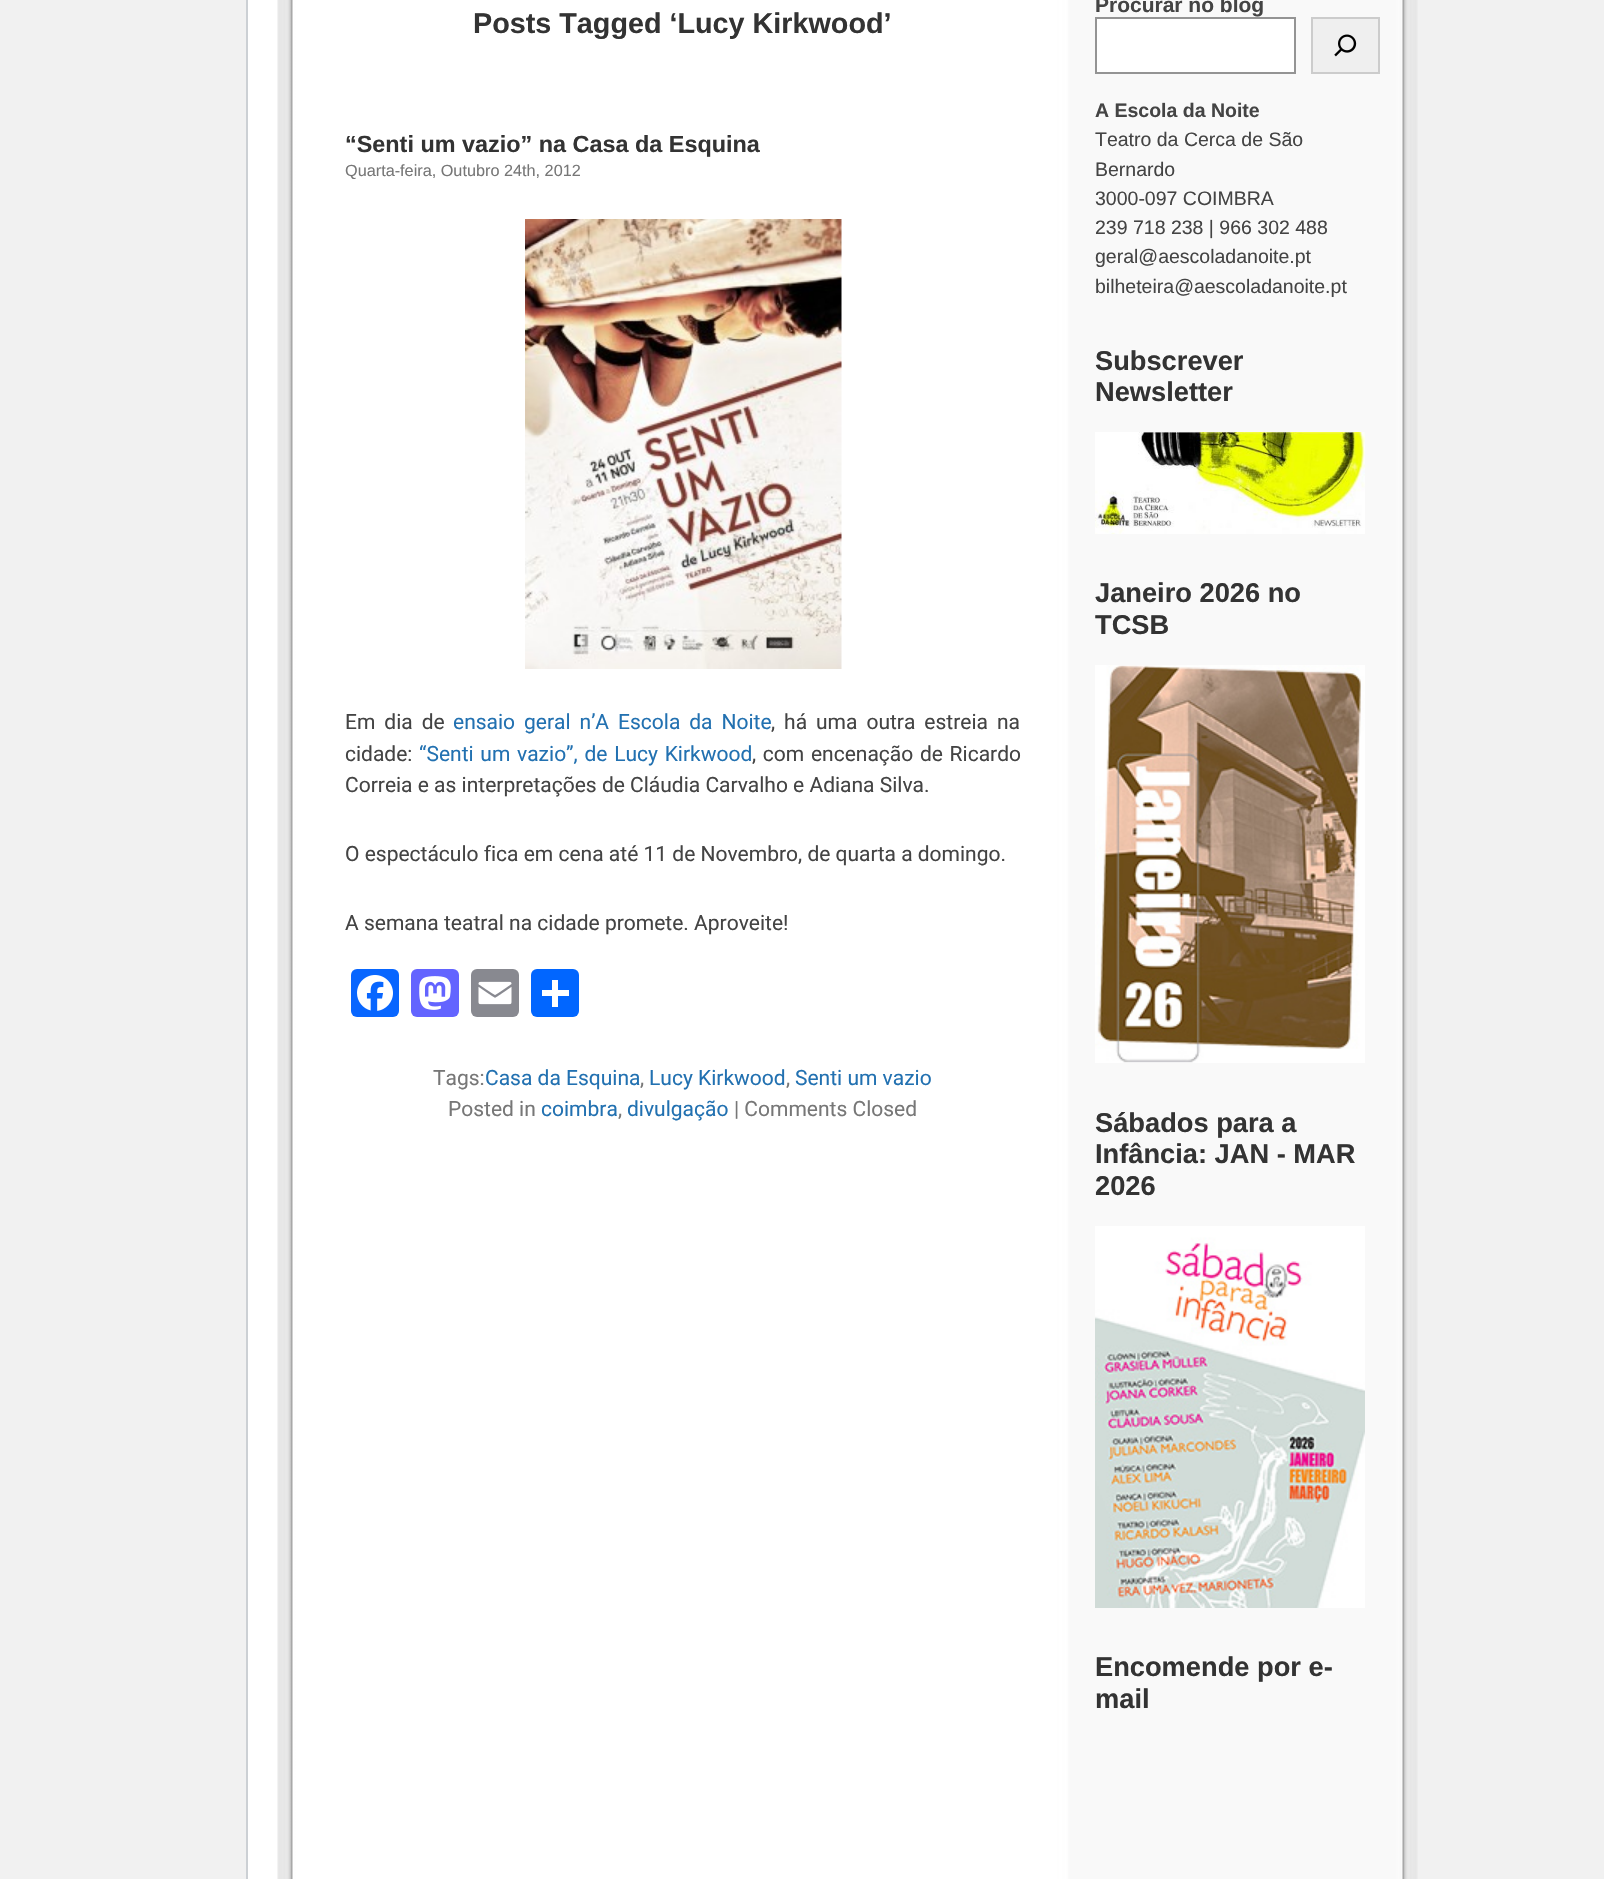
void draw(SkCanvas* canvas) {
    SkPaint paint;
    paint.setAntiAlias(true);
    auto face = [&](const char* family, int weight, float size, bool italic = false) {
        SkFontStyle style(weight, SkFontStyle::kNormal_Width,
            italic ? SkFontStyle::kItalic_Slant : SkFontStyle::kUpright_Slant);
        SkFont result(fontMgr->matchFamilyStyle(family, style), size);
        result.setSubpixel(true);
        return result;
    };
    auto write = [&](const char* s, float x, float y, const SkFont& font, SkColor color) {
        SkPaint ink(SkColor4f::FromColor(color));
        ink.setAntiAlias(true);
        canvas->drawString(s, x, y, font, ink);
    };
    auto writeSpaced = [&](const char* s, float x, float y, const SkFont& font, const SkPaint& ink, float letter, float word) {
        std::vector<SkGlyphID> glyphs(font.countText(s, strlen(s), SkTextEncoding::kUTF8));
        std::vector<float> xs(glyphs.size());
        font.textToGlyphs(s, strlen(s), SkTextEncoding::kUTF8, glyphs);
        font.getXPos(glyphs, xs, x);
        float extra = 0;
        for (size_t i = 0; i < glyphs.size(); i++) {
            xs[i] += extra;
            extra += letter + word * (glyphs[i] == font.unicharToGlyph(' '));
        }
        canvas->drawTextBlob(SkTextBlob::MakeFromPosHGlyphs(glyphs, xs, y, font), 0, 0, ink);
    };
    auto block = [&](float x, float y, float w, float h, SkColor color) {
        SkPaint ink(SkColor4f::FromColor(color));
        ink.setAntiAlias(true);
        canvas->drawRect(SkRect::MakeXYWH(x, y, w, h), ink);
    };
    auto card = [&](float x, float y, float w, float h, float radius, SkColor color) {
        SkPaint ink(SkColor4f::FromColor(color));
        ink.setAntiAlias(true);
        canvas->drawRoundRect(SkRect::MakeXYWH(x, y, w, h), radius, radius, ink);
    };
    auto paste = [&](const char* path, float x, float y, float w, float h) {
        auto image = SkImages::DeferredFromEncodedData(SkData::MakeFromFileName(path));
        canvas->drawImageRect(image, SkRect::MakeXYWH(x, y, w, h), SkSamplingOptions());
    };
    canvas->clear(SkColorSetRGB(241, 241, 241));
    block(248, 0, 30, 1879, SK_ColorWHITE);
    paint.setStyle(SkPaint::kStroke_Style);
    paint.setStrokeWidth(2);
    paint.setColor(SkColorSetRGB(204, 208, 212));
    canvas->drawRect(SkRect::MakeXYWH(247, -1, 1111, 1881), paint);
    paste("pic1.png", 277, 0, 1141, 1879);
    auto kFont1 = face("Liberation Sans", 700, 28.75f);
    write("Posts Tagged ‘Lucy Kirkwood’", 473, 33, kFont1, SkColorSetRGB(51, 51, 51));
    auto kFont2 = face("Liberation Sans", 700, 23.4f);
    write("“Senti um vazio” na Casa da Esquina", 345, 152, kFont2, SkColorSetRGB(51, 51, 51));
    auto kFont3 = face("Liberation Sans", 400, 16.25f);
    write("Quarta-feira, Outubro 24th, 2012", 345, 176, kFont3, SkColorSetRGB(119, 119, 119));
    paste("pic2.png", 525, 219, 317, 450);
    auto kFont4 = face("Roboto", 400, 21);
    paint.setStyle(SkPaint::kFill_Style);
    paint.setColor(SkColorSetRGB(68, 68, 68));
    writeSpaced("Em dia de", 345, 729, kFont4, paint, 0, 3.75f);
    paint.setColor(SkColorSetRGB(34, 113, 177));
    writeSpaced("ensaio geral n’A Escola da Noite", 453, 729, kFont4, paint, 0, 3.75f);
    paint.setColor(SkColorSetRGB(68, 68, 68));
    writeSpaced(", há uma outra estreia na", 771, 729, kFont4, paint, 0, 3.75f);
    write("cidade:", 345, 761, kFont4, SkColorSetRGB(68, 68, 68));
    paint.setColor(SkColorSetRGB(34, 113, 177));
    writeSpaced("“Senti um vazio”, de Lucy Kirkwood", 419, 761, kFont4, paint, 0, 1.5f);
    paint.setColor(SkColorSetRGB(68, 68, 68));
    writeSpaced(", com encenação de Ricardo", 752, 761, kFont4, paint, 0, 1.5f);
    write("Correia e as interpretações de Cláudia Carvalho e Adiana Silva.", 345, 792, kFont4, SkColorSetRGB(68, 68, 68));
    write("O espectáculo fica em cena até 11 de Novembro, de quarta a domingo.", 345, 861, kFont4, SkColorSetRGB(68, 68, 68));
    write("A semana teatral na cidade promete. Aproveite!", 345, 930, kFont4, SkColorSetRGB(68, 68, 68));
    card(351, 969, 48, 48, 6, SkColorSetRGB(8, 102, 255));
    paste("pic3.png", 357, 975, 36, 36);
    card(411, 969, 48, 48, 6, SkColorSetRGB(99, 100, 255));
    paste("pic4.png", 419, 976, 32, 34);
    card(471, 969, 48, 48, 6, SkColorSetRGB(136, 137, 144));
    paste("pic5.png", 478, 981, 34, 24);
    card(531, 969, 48, 48, 6, SkColorSetRGB(1, 102, 255));
    block(552, 980, 6, 27, SK_ColorWHITE);
    block(542, 990, 27, 6, SK_ColorWHITE);
    write("Tags:", 433, 1085, kFont4, SkColorSetRGB(119, 119, 119));
    write("Casa da Esquina", 485, 1085, kFont4, SkColorSetRGB(34, 113, 177));
    write(",", 640, 1085, kFont4, SkColorSetRGB(119, 119, 119));
    write("Lucy Kirkwood", 649, 1085, kFont4, SkColorSetRGB(34, 113, 177));
    write(",", 786, 1085, kFont4, SkColorSetRGB(119, 119, 119));
    write("Senti um vazio", 795, 1085, kFont4, SkColorSetRGB(34, 113, 177));
    write("Posted in", 448, 1116, kFont4, SkColorSetRGB(119, 119, 119));
    write("coimbra", 541, 1116, kFont4, SkColorSetRGB(34, 113, 177));
    write(",", 618, 1116, kFont4, SkColorSetRGB(119, 119, 119));
    write("divulgação", 627, 1116, kFont4, SkColorSetRGB(34, 113, 177));
    write("| Comments Closed", 734, 1116, kFont4, SkColorSetRGB(119, 119, 119));
    auto kFont5 = face("Liberation Sans", 700, 21);
    write("Procurar no blog", 1095, 12, kFont5, SkColorSetRGB(68, 68, 68));
    paint.setColor(SK_ColorWHITE);
    canvas->drawRect(SkRect::MakeXYWH(1096, 18, 199, 55), paint);
    paint.setStyle(SkPaint::kStroke_Style);
    paint.setColor(SkColorSetRGB(148, 148, 148));
    canvas->drawRect(SkRect::MakeXYWH(1096, 18, 199, 55), paint);
    paint.setStyle(SkPaint::kFill_Style);
    paint.setColor(SkColorSetRGB(239, 239, 239));
    canvas->drawRect(SkRect::MakeXYWH(1312, 18, 67, 55), paint);
    paint.setStyle(SkPaint::kStroke_Style);
    paint.setColor(SkColorSetRGB(204, 204, 204));
    canvas->drawRect(SkRect::MakeXYWH(1312, 18, 67, 55), paint);
    paste("pic6.png", 1334, 34, 23, 23);
    auto kFont6 = face("Liberation Sans", 700, 19.5f);
    write("A Escola da Noite", 1095, 117, kFont6, SkColorSetRGB(68, 68, 68));
    auto kFont7 = face("Liberation Sans", 400, 19.5f);
    write("Teatro da Cerca de São", 1095, 146, kFont7, SkColorSetRGB(68, 68, 68));
    write("Bernardo", 1095, 176, kFont7, SkColorSetRGB(68, 68, 68));
    write("3000-097 COIMBRA", 1095, 205, kFont7, SkColorSetRGB(68, 68, 68));
    write("239 718 238 | 966 302 488", 1095, 234, kFont7, SkColorSetRGB(68, 68, 68));
    write("geral@aescoladanoite.pt", 1095, 263, kFont7, SkColorSetRGB(68, 68, 68));
    write("bilheteira@aescoladanoite.pt", 1095, 293, kFont7, SkColorSetRGB(68, 68, 68));
    auto kFont8 = face("Liberation Sans", 700, 27.25f);
    write("Subscrever", 1095, 370, kFont8, SkColorSetRGB(51, 51, 51));
    write("Newsletter", 1095, 401, kFont8, SkColorSetRGB(51, 51, 51));
    paste("pic7.png", 1095, 432, 270, 102);
    write("Janeiro 2026 no", 1095, 602, kFont8, SkColorSetRGB(51, 51, 51));
    write("TCSB", 1095, 634, kFont8, SkColorSetRGB(51, 51, 51));
    paste("pic8.png", 1095, 665, 270, 398);
    write("Sábados para a", 1095, 1132, kFont8, SkColorSetRGB(51, 51, 51));
    write("Infância: JAN - MAR", 1095, 1163, kFont8, SkColorSetRGB(51, 51, 51));
    write("2026", 1095, 1195, kFont8, SkColorSetRGB(51, 51, 51));
    paste("pic9.png", 1095, 1226, 270, 382);
    write("Encomende por e-", 1095, 1676, kFont8, SkColorSetRGB(51, 51, 51));
    write("mail", 1095, 1708, kFont8, SkColorSetRGB(51, 51, 51));
}
